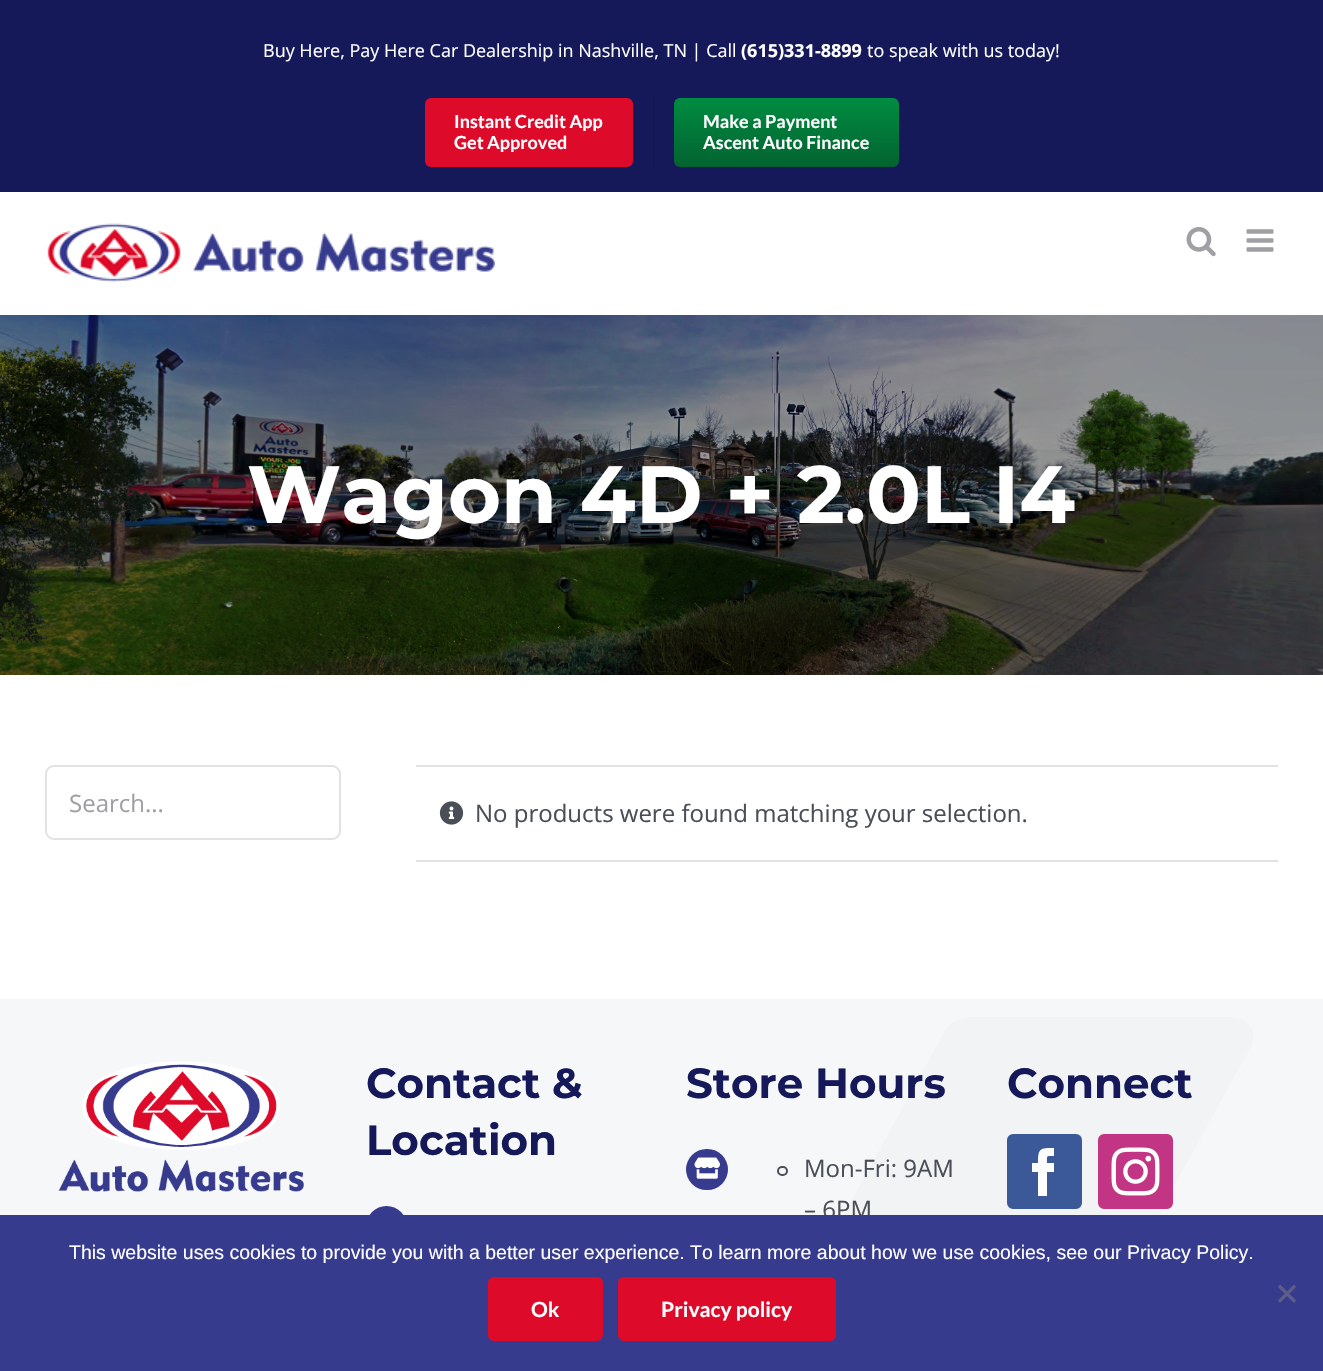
void draw(SkCanvas* canvas) {
    SkPaint paint;
    paint.setAntiAlias(true);
    auto face = [&](const char* family, int weight, float size, bool italic = false) {
        SkFontStyle style(weight, SkFontStyle::kNormal_Width,
            italic ? SkFontStyle::kItalic_Slant : SkFontStyle::kUpright_Slant);
        SkFont result(fontMgr->matchFamilyStyle(family, style), size);
        result.setSubpixel(true);
        return result;
    };
    auto write = [&](const char* s, float x, float y, const SkFont& font, SkColor color) {
        SkPaint ink(SkColor4f::FromColor(color));
        ink.setAntiAlias(true);
        canvas->drawString(s, x, y, font, ink);
    };
    auto block = [&](float x, float y, float w, float h, SkColor color) {
        SkPaint ink(SkColor4f::FromColor(color));
        ink.setAntiAlias(true);
        canvas->drawRect(SkRect::MakeXYWH(x, y, w, h), ink);
    };
    auto card = [&](float x, float y, float w, float h, float radius, SkColor color) {
        SkPaint ink(SkColor4f::FromColor(color));
        ink.setAntiAlias(true);
        canvas->drawRoundRect(SkRect::MakeXYWH(x, y, w, h), radius, radius, ink);
    };
    auto paste = [&](const char* path, float x, float y, float w, float h) {
        auto image = SkImages::DeferredFromEncodedData(SkData::MakeFromFileName(path));
        canvas->drawImageRect(image, SkRect::MakeXYWH(x, y, w, h), SkSamplingOptions());
    };
    canvas->clear(SK_ColorWHITE);
    block(0, 0, 1323, 192, SkColorSetRGB(21, 24, 89));
    auto kFont1 = face("Open Sans", 400, 18);
    write("Buy Here, Pay Here Car Dealership in Nashville, TN | Call", 263, 57, kFont1, SK_ColorWHITE);
    auto kFont2 = face("Open Sans", 700, 18);
    write("(615)331-8899", 741, 57, kFont2, SK_ColorWHITE);
    write("to speak with us today!", 867, 57, kFont1, SK_ColorWHITE);
    card(425, 98, 208, 69, 6, SkColorSetRGB(222, 10, 42));
    auto kFont3 = face("Lato", 700, 18);
    write("Instant Credit App", 454, 128, kFont3, SK_ColorWHITE);
    write("Get Approved", 454, 149, kFont3, SK_ColorWHITE);
    block(653, 96, 2, 72, SkColorSetRGB(20, 23, 84));
    {
        const SkColor colors[] = {SkColorSetRGB(3, 99, 48), SkColorSetRGB(0, 140, 65)};
        const float stops[] = {0, 1};
        const SkPoint ends[] = {{786, 167}, {786, 98}};
        paint.setShader(SkGradientShader::MakeLinear(ends, colors, stops, 2, SkTileMode::kClamp));
        paint.setAlpha(255);
    }
    canvas->drawRoundRect(SkRect::MakeXYWH(674, 98, 225, 69), 6, 6, paint);
    write("Make a Payment", 703, 128, kFont3, SK_ColorWHITE);
    write("Ascent Auto Finance", 703, 149, kFont3, SK_ColorWHITE);
    paste("pic1.png", 47, 223, 448, 60);
    paste("pic2.png", 1186, 227, 30, 30);
    paste("pic3.png", 1246, 229, 28, 23);
    paste("pic4.png", 0, 315, 1323, 360);
    auto kFont4 = face("Montserrat", 700, 81);
    write("Wagon 4D + 2.0L I4", 247, 523, kFont4, SK_ColorWHITE);
    paint.setStyle(SkPaint::kStroke_Style);
    paint.setStrokeWidth(2);
    paint.setShader(nullptr);
    paint.setColor(SkColorSetRGB(226, 226, 226));
    canvas->drawRoundRect(SkRect::MakeXYWH(46, 766, 294, 73), 8, 8, paint);
    auto kFont5 = face("Open Sans", 400, 24);
    write("Search...", 69, 812, kFont5, SkColorSetRGB(158, 160, 164));
    block(416, 765, 862, 2, SkColorSetRGB(226, 226, 226));
    block(416, 860, 862, 2, SkColorSetRGB(226, 226, 226));
    paste("pic5.png", 439, 801, 25, 24);
    write("No products were found matching your selection.", 475, 822, kFont5, SkColorSetRGB(74, 78, 87));
    block(843, 1017, 411, 198, SkColorSetRGB(242, 243, 245));
    canvas->save();
    canvas->clipRect(SkRect::MakeXYWH(0, 999, 1323, 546));
    paint.setStyle(SkPaint::kFill_Style);
    paint.setColor(SkColorSetRGB(246, 247, 249));
    canvas->drawPath(SkPathBuilder(SkPathFillType::kEvenOdd).moveTo(1323, 944).lineTo(0, 944).lineTo(0, 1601).lineTo(536, 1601).lineTo(703, 1302).cubicTo(708, 1294, 719, 1287, 728, 1287).lineTo(804, 1287).lineTo(945, 1031).cubicTo(950, 1023, 961, 1017, 970, 1017).lineTo(1229, 1017).cubicTo(1250, 1017, 1259, 1032, 1249, 1050).lineTo(945, 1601).lineTo(1006, 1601).lineTo(1210, 1233).cubicTo(1214, 1225, 1225, 1218, 1234, 1218).lineTo(1323, 1218).close().detach(), paint);
    canvas->restore();
    paste("pic6.png", 58, 1061, 246, 131);
    auto kFont6 = face("Montserrat", 700, 42);
    write("Contact &", 366, 1098, kFont6, SkColorSetRGB(21, 24, 89));
    write("Location", 366, 1155, kFont6, SkColorSetRGB(21, 24, 89));
    paint.setColor(SkColorSetRGB(55, 59, 142));
    canvas->drawCircle(386.5f, 1226.5f, 20.5f, paint);
    write("Store Hours", 686, 1098, kFont6, SkColorSetRGB(21, 24, 89));
    card(686, 1149, 42, 41, 20.5f, SkColorSetRGB(55, 59, 142));
    paste("pic7.png", 694, 1157, 26, 22);
    paint.setStyle(SkPaint::kStroke_Style);
    paint.setColor(SkColorSetRGB(74, 78, 87));
    canvas->drawRoundRect(SkRect::MakeXYWH(778, 1167, 9, 8), 4, 4, paint);
    write("Mon-Fri: 9AM", 804, 1177, kFont5, SkColorSetRGB(74, 78, 87));
    write("– 6PM", 804, 1218, kFont5, SkColorSetRGB(74, 78, 87));
    write("Connect", 1007, 1098, kFont6, SkColorSetRGB(21, 24, 89));
    paint.setStyle(SkPaint::kFill_Style);
    paint.setColor(SkColorSetRGB(59, 89, 152));
    canvas->drawRoundRect(SkRect::MakeXYWH(1008, 1135, 73, 73), 5, 5, paint);
    paint.setStyle(SkPaint::kStroke_Style);
    canvas->drawRoundRect(SkRect::MakeXYWH(1008, 1135, 73, 73), 5, 5, paint);
    paint.setStyle(SkPaint::kFill_Style);
    paint.setColor(SK_ColorWHITE);
    canvas->drawPath(SkPathBuilder().moveTo(1047, 1196).lineTo(1038, 1196).lineTo(1038, 1172).lineTo(1032, 1172).lineTo(1032, 1163).lineTo(1038, 1163).cubicTo(1038, 1148, 1040, 1148, 1054, 1148).lineTo(1054, 1156).cubicTo(1046, 1156, 1047, 1155, 1047, 1163).lineTo(1054, 1163).lineTo(1054, 1172).lineTo(1047, 1172).close().detach(), paint);
    paint.setColor(SkColorSetRGB(193, 53, 132));
    canvas->drawRoundRect(SkRect::MakeXYWH(1099, 1135, 73, 73), 5, 5, paint);
    paint.setStyle(SkPaint::kStroke_Style);
    canvas->drawRoundRect(SkRect::MakeXYWH(1099, 1135, 73, 73), 5, 5, paint);
    paste("pic8.png", 1111, 1147, 49, 49);
    block(0, 1215, 1323, 156, SkColorSetRGB(55, 59, 142));
    auto kFont7 = face("Liberation Sans", 400, 19.5f);
    write("This website uses cookies to provide you with a better user experience. To learn more about how we use cookies, see our Privacy Policy.", 69, 1259, kFont7, SK_ColorWHITE);
    paint.setStyle(SkPaint::kFill_Style);
    paint.setColor(SkColorSetRGB(92, 94, 135));
    canvas->drawPath(SkPathBuilder().moveTo(1294, 1284.5f).lineTo(1296, 1287).lineTo(1280, 1303).lineTo(1278, 1300.5f).close().detach(), paint);
    canvas->drawPath(SkPathBuilder().moveTo(1278, 1287).lineTo(1280, 1284.5f).lineTo(1296, 1300.5f).lineTo(1294, 1303).close().detach(), paint);
    card(488, 1277, 115, 64, 6, SkColorSetRGB(222, 10, 42));
    auto kFont8 = face("Lato", 700, 21);
    write("Ok", 531, 1317, kFont8, SK_ColorWHITE);
    card(618, 1277, 218, 64, 6, SkColorSetRGB(222, 10, 42));
    write("Privacy policy", 661, 1317, kFont8, SK_ColorWHITE);
}
